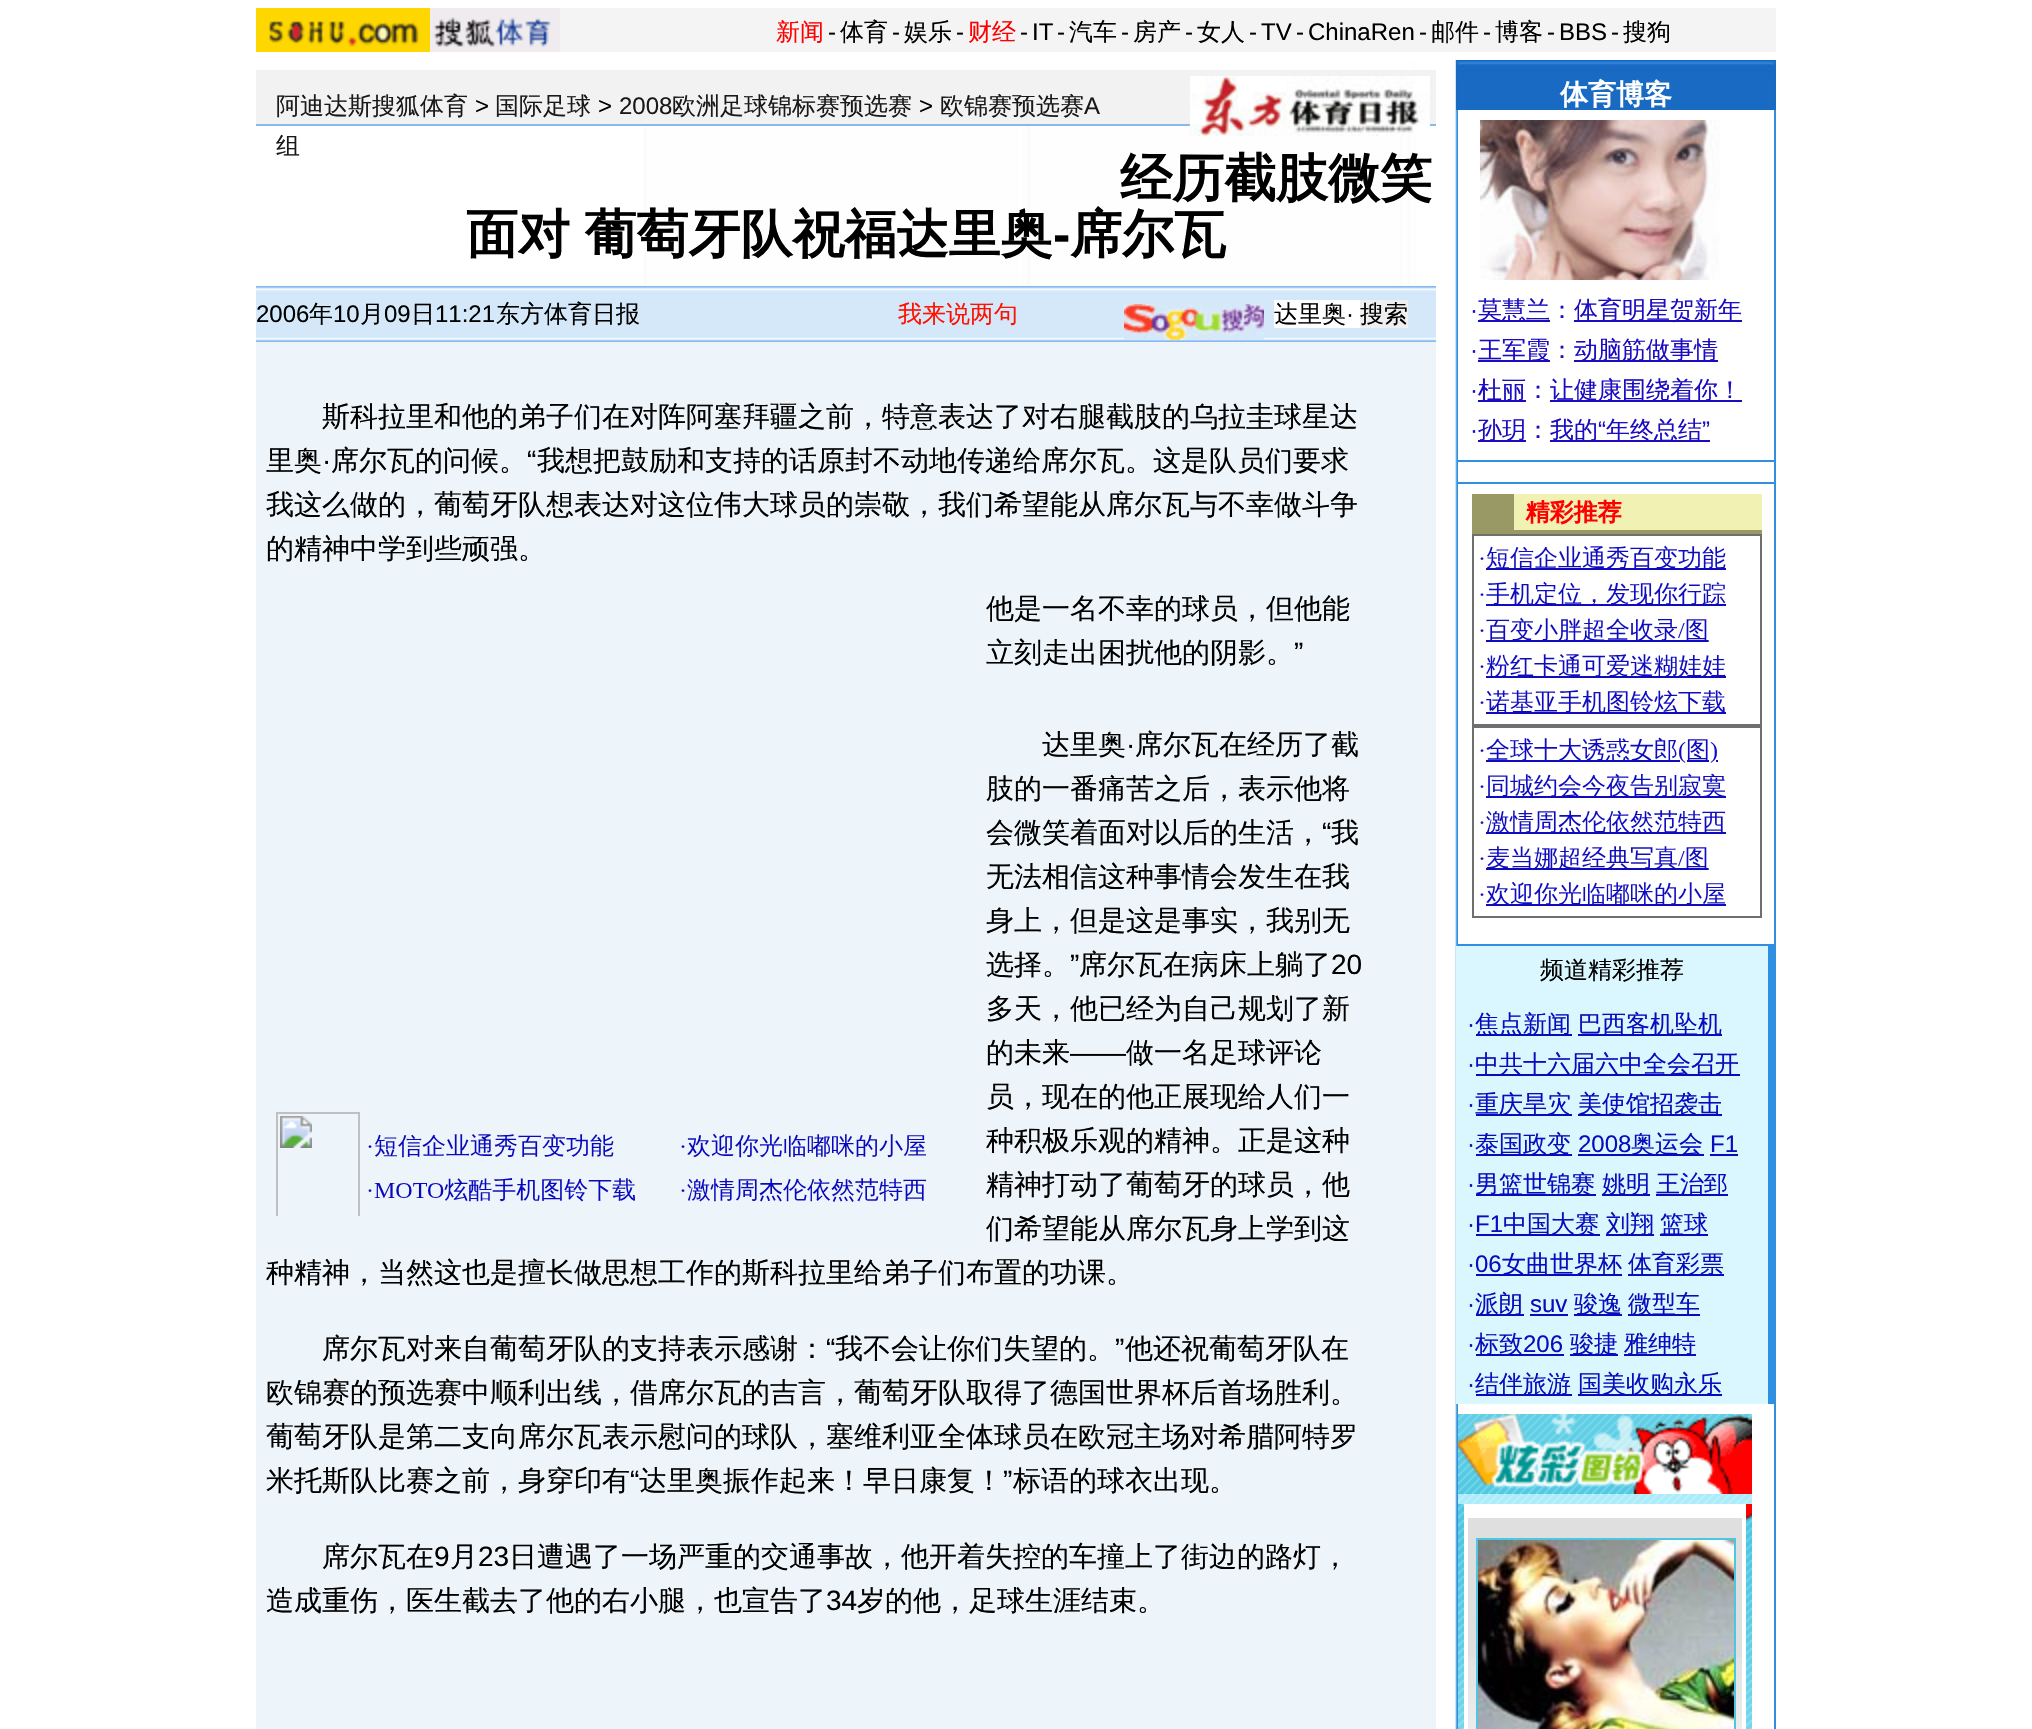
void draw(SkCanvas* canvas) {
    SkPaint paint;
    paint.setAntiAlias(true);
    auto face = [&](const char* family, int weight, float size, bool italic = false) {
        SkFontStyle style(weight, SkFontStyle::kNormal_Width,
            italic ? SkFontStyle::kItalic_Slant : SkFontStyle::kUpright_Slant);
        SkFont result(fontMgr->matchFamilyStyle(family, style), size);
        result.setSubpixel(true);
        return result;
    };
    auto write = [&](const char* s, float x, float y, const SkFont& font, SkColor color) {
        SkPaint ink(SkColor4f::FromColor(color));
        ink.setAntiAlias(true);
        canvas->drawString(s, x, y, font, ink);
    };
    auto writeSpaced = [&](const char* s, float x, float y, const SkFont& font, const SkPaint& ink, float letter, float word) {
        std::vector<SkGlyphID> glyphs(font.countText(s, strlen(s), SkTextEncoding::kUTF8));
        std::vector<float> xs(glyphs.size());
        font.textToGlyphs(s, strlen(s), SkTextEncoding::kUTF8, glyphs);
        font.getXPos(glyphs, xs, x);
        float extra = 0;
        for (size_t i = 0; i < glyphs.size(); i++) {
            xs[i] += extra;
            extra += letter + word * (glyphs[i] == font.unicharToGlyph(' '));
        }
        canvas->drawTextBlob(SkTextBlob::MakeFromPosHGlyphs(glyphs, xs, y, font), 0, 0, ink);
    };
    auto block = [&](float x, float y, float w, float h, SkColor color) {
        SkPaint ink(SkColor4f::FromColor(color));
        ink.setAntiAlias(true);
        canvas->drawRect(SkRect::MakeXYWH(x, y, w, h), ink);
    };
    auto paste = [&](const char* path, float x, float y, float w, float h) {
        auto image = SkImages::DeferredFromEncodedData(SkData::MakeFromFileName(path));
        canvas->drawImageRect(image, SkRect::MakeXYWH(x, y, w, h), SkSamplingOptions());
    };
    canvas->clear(SK_ColorWHITE);
    block(560, 8, 1216, 44, SkColorSetRGB(244, 244, 244));
    paste("pic1.png", 256, 8, 174, 44);
    paste("pic2.png", 430, 8, 130, 44);
    auto kFont1 = face("WenQuanYi Zen Hei", 500, 24);
    write("新闻", 776, 40, kFont1, SkColorSetRGB(255, 0, 0));
    auto kFont2 = face("Liberation Sans", 400, 24);
    write("-", 828, 40, kFont2, SK_ColorBLACK);
    write("体育", 840, 40, kFont1, SK_ColorBLACK);
    write("-", 892, 40, kFont2, SK_ColorBLACK);
    write("娱乐", 904, 40, kFont1, SK_ColorBLACK);
    write("-", 956, 40, kFont2, SK_ColorBLACK);
    write("财经", 968, 40, kFont1, SkColorSetRGB(255, 0, 0));
    write("-", 1020, 40, kFont2, SK_ColorBLACK);
    write("IT", 1032, 40, kFont2, SK_ColorBLACK);
    write("-", 1057, 40, kFont2, SK_ColorBLACK);
    write("汽车", 1069, 40, kFont1, SK_ColorBLACK);
    write("-", 1121, 40, kFont2, SK_ColorBLACK);
    write("房产", 1133, 40, kFont1, SK_ColorBLACK);
    write("-", 1185, 40, kFont2, SK_ColorBLACK);
    write("女人", 1197, 40, kFont1, SK_ColorBLACK);
    write("-", 1249, 40, kFont2, SK_ColorBLACK);
    write("TV", 1261, 40, kFont2, SK_ColorBLACK);
    write("-", 1296, 40, kFont2, SK_ColorBLACK);
    write("ChinaRen", 1308, 40, kFont2, SK_ColorBLACK);
    write("-", 1419, 40, kFont2, SK_ColorBLACK);
    write("邮件", 1431, 40, kFont1, SK_ColorBLACK);
    write("-", 1483, 40, kFont2, SK_ColorBLACK);
    write("博客", 1495, 40, kFont1, SK_ColorBLACK);
    write("-", 1547, 40, kFont2, SK_ColorBLACK);
    write("BBS", 1559, 40, kFont2, SK_ColorBLACK);
    write("-", 1611, 40, kFont2, SK_ColorBLACK);
    write("搜狗", 1623, 40, kFont1, SK_ColorBLACK);
    paste("pic3.png", 644, 60, 1132, 1669);
    block(644, 60, 766, 10, SK_ColorWHITE);
    block(256, 70, 1180, 54, SkColorSetRGB(241, 242, 241));
    block(256, 124, 1180, 2, SkColorSetRGB(135, 186, 236));
    write("阿迪达斯搜狐体育", 276, 114, kFont1, SkColorSetRGB(25, 25, 25));
    write(">", 475, 114, kFont2, SK_ColorBLACK);
    write("国际足球", 495, 114, kFont1, SkColorSetRGB(25, 25, 25));
    write(">", 598, 114, kFont2, SK_ColorBLACK);
    write("2008", 619, 114, kFont2, SkColorSetRGB(25, 25, 25));
    write("欧洲足球锦标赛预选赛", 672, 114, kFont1, SkColorSetRGB(25, 25, 25));
    write(">", 919, 114, kFont2, SK_ColorBLACK);
    write("欧锦赛预选赛", 940, 114, kFont1, SkColorSetRGB(25, 25, 25));
    write("A", 1084, 114, kFont2, SkColorSetRGB(25, 25, 25));
    write("组", 276, 154, kFont1, SkColorSetRGB(25, 25, 25));
    paste("pic4.png", 1190, 76, 240, 60);
    auto kFont3 = face("WenQuanYi Zen Hei", 700, 52);
    write("经历截肢微笑", 1120, 196, kFont3, SK_ColorBLACK);
    paint.setColor(SK_ColorBLACK);
    writeSpaced("面对 葡萄牙队祝福达里奥", 466, 252, kFont3, paint, 0, -1);
    auto kFont4 = face("Liberation Sans", 700, 52);
    write("-", 1053, 252, kFont4, SK_ColorBLACK);
    write("席尔瓦", 1070, 252, kFont3, SK_ColorBLACK);
    paste("pic5.png", 256, 286, 1180, 56);
    write("2006", 256, 322, kFont2, SK_ColorBLACK);
    write("年", 309, 322, kFont1, SK_ColorBLACK);
    write("10", 333, 322, kFont2, SK_ColorBLACK);
    write("月", 360, 322, kFont1, SK_ColorBLACK);
    write("09", 384, 322, kFont2, SK_ColorBLACK);
    write("日", 411, 322, kFont1, SK_ColorBLACK);
    write("11:21", 435, 322, kFont2, SK_ColorBLACK);
    write("东方体育日报", 496, 322, kFont1, SK_ColorBLACK);
    write("我来说两句", 898, 322, kFont1, SkColorSetRGB(254, 18, 0));
    paste("pic6.png", 1124, 304, 140, 36);
    block(1274, 300, 86, 28, SK_ColorWHITE);
    write("达里奥", 1274, 322, kFont1, SK_ColorBLACK);
    write("·", 1346, 322, kFont2, SK_ColorBLACK);
    block(1360, 300, 48, 28, SkColorSetRGB(239, 239, 239));
    write("搜索", 1360, 322, kFont1, SK_ColorBLACK);
    block(256, 342, 1180, 1387, SkColorSetRGB(238, 245, 250));
    auto kFont5 = face("WenQuanYi Zen Hei", 500, 28);
    write("斯科拉里和他的弟子们在对阵阿塞拜疆之前，特意表达了对右腿截肢的乌拉圭球星达", 322, 426, kFont5, SK_ColorBLACK);
    write("里奥", 266, 470, kFont5, SK_ColorBLACK);
    write("席尔瓦的问候。", 331, 470, kFont5, SK_ColorBLACK);
    auto kFont6 = face("Liberation Sans", 400, 28);
    write("“", 527, 470, kFont6, SK_ColorBLACK);
    write("我想把鼓励和支持的话原封不动地传递给席尔瓦。这是队员们要求", 537, 470, kFont5, SK_ColorBLACK);
    write("·", 322, 470, kFont6, SK_ColorBLACK);
    write("我这么做的，葡萄牙队想表达对这位伟大球员的崇敬，我们希望能从席尔瓦与不幸做斗争", 266, 514, kFont5, SK_ColorBLACK);
    write("的精神中学到些顽强。", 266, 558, kFont5, SK_ColorBLACK);
    write("他是一名不幸的球员，但他能", 986, 618, kFont5, SK_ColorBLACK);
    write("立刻走出困扰他的阴影。", 986, 662, kFont5, SK_ColorBLACK);
    write("”", 1294, 662, kFont6, SK_ColorBLACK);
    write("达里奥", 1042, 754, kFont5, SK_ColorBLACK);
    write("·", 1126, 754, kFont6, SK_ColorBLACK);
    write("席尔瓦在经历了截", 1135, 754, kFont5, SK_ColorBLACK);
    write("肢的一番痛苦之后，表示他将", 986, 798, kFont5, SK_ColorBLACK);
    write("会微笑着面对以后的生活，", 986, 842, kFont5, SK_ColorBLACK);
    write("“", 1322, 842, kFont6, SK_ColorBLACK);
    write("我", 1331, 842, kFont5, SK_ColorBLACK);
    write("无法相信这种事情会发生在我", 986, 886, kFont5, SK_ColorBLACK);
    write("身上，但是这是事实，我别无", 986, 930, kFont5, SK_ColorBLACK);
    write("选择。", 986, 974, kFont5, SK_ColorBLACK);
    write("”", 1070, 974, kFont6, SK_ColorBLACK);
    write("席尔瓦在病床上躺了", 1079, 974, kFont5, SK_ColorBLACK);
    write("20", 1331, 974, kFont6, SK_ColorBLACK);
    write("多天，他已经为自己规划了新", 986, 1018, kFont5, SK_ColorBLACK);
    write("的未来", 986, 1062, kFont5, SK_ColorBLACK);
    write("——", 1070, 1062, kFont6, SK_ColorBLACK);
    write("做一名足球评论", 1126, 1062, kFont5, SK_ColorBLACK);
    write("员，现在的他正展现给人们一", 986, 1106, kFont5, SK_ColorBLACK);
    write("种积极乐观的精神。正是这种", 986, 1150, kFont5, SK_ColorBLACK);
    write("精神打动了葡萄牙的球员，他", 986, 1194, kFont5, SK_ColorBLACK);
    write("们希望能从席尔瓦身上学到这", 986, 1238, kFont5, SK_ColorBLACK);
    write("种精神，当然这也是擅长做思想工作的斯科拉里给弟子们布置的功课。", 266, 1282, kFont5, SK_ColorBLACK);
    paste("pic7.png", 276, 1112, 650, 104);
    write("席尔瓦对来自葡萄牙队的支持表示感谢：", 322, 1358, kFont5, SK_ColorBLACK);
    write("“", 826, 1358, kFont6, SK_ColorBLACK);
    write("我不会让你们失望的。", 835, 1358, kFont5, SK_ColorBLACK);
    write("”", 1115, 1358, kFont6, SK_ColorBLACK);
    write("他还祝葡萄牙队在", 1125, 1358, kFont5, SK_ColorBLACK);
    write("欧锦赛的预选赛中顺利出线，借席尔瓦的吉言，葡萄牙队取得了德国世界杯后首场胜利。", 266, 1402, kFont5, SK_ColorBLACK);
    write("葡萄牙队是第二支向席尔瓦表示慰问的球队，塞维利亚全体球员在欧冠主场对希腊阿特罗", 266, 1446, kFont5, SK_ColorBLACK);
    write("米托斯队比赛之前，身穿印有", 266, 1490, kFont5, SK_ColorBLACK);
    write("“", 630, 1490, kFont6, SK_ColorBLACK);
    write("达里奥振作起来！早日康复！", 639, 1490, kFont5, SK_ColorBLACK);
    write("”", 1003, 1490, kFont6, SK_ColorBLACK);
    write("标语的球衣出现。", 1013, 1490, kFont5, SK_ColorBLACK);
    write("席尔瓦在", 322, 1566, kFont5, SK_ColorBLACK);
    write("9", 434, 1566, kFont6, SK_ColorBLACK);
    write("月", 450, 1566, kFont5, SK_ColorBLACK);
    write("23", 478, 1566, kFont6, SK_ColorBLACK);
    write("日遭遇了一场严重的交通事故，他开着失控的车撞上了街边的路灯，", 509, 1566, kFont5, SK_ColorBLACK);
    write("造成重伤，医生截去了他的右小腿，也宣告了", 266, 1610, kFont5, SK_ColorBLACK);
    write("34", 826, 1610, kFont6, SK_ColorBLACK);
    write("岁的他，足球生涯结束。", 857, 1610, kFont5, SK_ColorBLACK);
    paste("pic8.png", 1456, 60, 320, 50);
    auto kFont7 = face("WenQuanYi Zen Hei", 700, 28);
    write("体育博客", 1560, 104, kFont7, SK_ColorWHITE);
    block(1458, 110, 316, 350, SK_ColorWHITE);
    paste("pic9.png", 1480, 120, 240, 160);
    write("·", 1470, 318, kFont2, SkColorSetRGB(27, 12, 194));
    block(1478, 320, 72, 2, SkColorSetRGB(27, 12, 194));
    write("莫慧兰：", 1478, 318, kFont1, SkColorSetRGB(27, 12, 194));
    block(1574, 320, 168, 2, SkColorSetRGB(27, 12, 194));
    write("体育明星贺新年", 1574, 318, kFont1, SkColorSetRGB(27, 12, 194));
    write("·", 1470, 358, kFont2, SkColorSetRGB(27, 12, 194));
    block(1478, 360, 72, 2, SkColorSetRGB(27, 12, 194));
    write("王军霞：", 1478, 358, kFont1, SkColorSetRGB(27, 12, 194));
    block(1574, 360, 144, 2, SkColorSetRGB(27, 12, 194));
    write("动脑筋做事情", 1574, 358, kFont1, SkColorSetRGB(27, 12, 194));
    write("·", 1470, 398, kFont2, SkColorSetRGB(27, 12, 194));
    block(1478, 400, 48, 2, SkColorSetRGB(27, 12, 194));
    write("杜丽：", 1478, 398, kFont1, SkColorSetRGB(27, 12, 194));
    block(1550, 400, 192, 2, SkColorSetRGB(27, 12, 194));
    write("让健康围绕着你！", 1550, 398, kFont1, SkColorSetRGB(27, 12, 194));
    block(1478, 440, 48, 2, SkColorSetRGB(27, 12, 194));
    write("孙玥：", 1478, 438, kFont1, SkColorSetRGB(27, 12, 194));
    block(1550, 440, 160, 2, SkColorSetRGB(27, 12, 194));
    write("我的", 1550, 438, kFont1, SkColorSetRGB(27, 12, 194));
    write("“", 1598, 438, kFont2, SkColorSetRGB(27, 12, 194));
    write("年终总结", 1606, 438, kFont1, SkColorSetRGB(27, 12, 194));
    write("”", 1702, 438, kFont2, SkColorSetRGB(27, 12, 194));
    write("·", 1470, 438, kFont2, SkColorSetRGB(27, 12, 194));
    block(1458, 462, 316, 20, SK_ColorWHITE);
    block(1458, 484, 316, 460, SK_ColorWHITE);
    paste("pic10.png", 1472, 494, 290, 424);
    block(1456, 946, 312, 458, SkColorSetRGB(218, 246, 255));
    write("频道精彩推荐", 1540, 978, kFont1, SK_ColorBLACK);
    write("·", 1467, 1032, kFont2, SkColorSetRGB(8, 12, 189));
    block(1476, 1034, 96, 2, SkColorSetRGB(8, 12, 189));
    write("焦点新闻", 1475, 1032, kFont1, SkColorSetRGB(8, 12, 189));
    block(1578, 1034, 144, 2, SkColorSetRGB(8, 12, 189));
    write("巴西客机坠机", 1578, 1032, kFont1, SkColorSetRGB(8, 12, 189));
    write("·", 1467, 1072, kFont2, SkColorSetRGB(8, 12, 189));
    block(1476, 1074, 264, 2, SkColorSetRGB(8, 12, 189));
    write("中共十六届六中全会召开", 1475, 1072, kFont1, SkColorSetRGB(8, 12, 189));
    write("·", 1467, 1112, kFont2, SkColorSetRGB(8, 12, 189));
    block(1476, 1114, 96, 2, SkColorSetRGB(8, 12, 189));
    write("重庆旱灾", 1475, 1112, kFont1, SkColorSetRGB(8, 12, 189));
    block(1578, 1114, 144, 2, SkColorSetRGB(8, 12, 189));
    write("美使馆招袭击", 1578, 1112, kFont1, SkColorSetRGB(8, 12, 189));
    write("·", 1467, 1152, kFont2, SkColorSetRGB(8, 12, 189));
    block(1476, 1154, 96, 2, SkColorSetRGB(8, 12, 189));
    write("泰国政变", 1475, 1152, kFont1, SkColorSetRGB(8, 12, 189));
    write("2008", 1578, 1152, kFont2, SkColorSetRGB(8, 12, 189));
    block(1578, 1154, 126, 2, SkColorSetRGB(8, 12, 189));
    write("奥运会", 1631, 1152, kFont1, SkColorSetRGB(8, 12, 189));
    write("F1", 1710, 1152, kFont2, SkColorSetRGB(8, 12, 189));
    block(1710, 1154, 28, 2, SkColorSetRGB(8, 12, 189));
    write("·", 1467, 1192, kFont2, SkColorSetRGB(8, 12, 189));
    block(1476, 1194, 120, 2, SkColorSetRGB(8, 12, 189));
    write("男篮世锦赛", 1475, 1192, kFont1, SkColorSetRGB(8, 12, 189));
    block(1602, 1194, 48, 2, SkColorSetRGB(8, 12, 189));
    write("姚明", 1602, 1192, kFont1, SkColorSetRGB(8, 12, 189));
    block(1656, 1194, 72, 2, SkColorSetRGB(8, 12, 189));
    write("王治郅", 1656, 1192, kFont1, SkColorSetRGB(8, 12, 189));
    write("·F1", 1467, 1232, kFont2, SkColorSetRGB(8, 12, 189));
    block(1476, 1234, 124, 2, SkColorSetRGB(8, 12, 189));
    write("中国大赛", 1503, 1232, kFont1, SkColorSetRGB(8, 12, 189));
    block(1606, 1234, 48, 2, SkColorSetRGB(8, 12, 189));
    write("刘翔", 1606, 1232, kFont1, SkColorSetRGB(8, 12, 189));
    block(1660, 1234, 48, 2, SkColorSetRGB(8, 12, 189));
    write("篮球", 1660, 1232, kFont1, SkColorSetRGB(8, 12, 189));
    write("·06", 1467, 1272, kFont2, SkColorSetRGB(8, 12, 189));
    block(1476, 1274, 146, 2, SkColorSetRGB(8, 12, 189));
    write("女曲世界杯", 1502, 1272, kFont1, SkColorSetRGB(8, 12, 189));
    block(1628, 1274, 96, 2, SkColorSetRGB(8, 12, 189));
    write("体育彩票", 1628, 1272, kFont1, SkColorSetRGB(8, 12, 189));
    write("·", 1467, 1312, kFont2, SkColorSetRGB(8, 12, 189));
    block(1476, 1314, 48, 2, SkColorSetRGB(8, 12, 189));
    write("派朗", 1475, 1312, kFont1, SkColorSetRGB(8, 12, 189));
    write("suv", 1530, 1312, kFont2, SkColorSetRGB(8, 12, 189));
    block(1530, 1314, 38, 2, SkColorSetRGB(8, 12, 189));
    block(1574, 1314, 48, 2, SkColorSetRGB(8, 12, 189));
    write("骏逸", 1574, 1312, kFont1, SkColorSetRGB(8, 12, 189));
    block(1628, 1314, 72, 2, SkColorSetRGB(8, 12, 189));
    write("微型车", 1628, 1312, kFont1, SkColorSetRGB(8, 12, 189));
    write("·", 1467, 1352, kFont2, SkColorSetRGB(8, 12, 189));
    block(1476, 1354, 88, 2, SkColorSetRGB(8, 12, 189));
    write("标致", 1475, 1352, kFont1, SkColorSetRGB(8, 12, 189));
    write("206", 1523, 1352, kFont2, SkColorSetRGB(8, 12, 189));
    block(1570, 1354, 48, 2, SkColorSetRGB(8, 12, 189));
    write("骏捷", 1570, 1352, kFont1, SkColorSetRGB(8, 12, 189));
    block(1624, 1354, 72, 2, SkColorSetRGB(8, 12, 189));
    write("雅绅特", 1624, 1352, kFont1, SkColorSetRGB(8, 12, 189));
    write("·", 1467, 1392, kFont2, SkColorSetRGB(8, 12, 189));
    block(1476, 1394, 96, 2, SkColorSetRGB(8, 12, 189));
    write("结伴旅游", 1475, 1392, kFont1, SkColorSetRGB(8, 12, 189));
    block(1578, 1394, 144, 2, SkColorSetRGB(8, 12, 189));
    write("国美收购永乐", 1578, 1392, kFont1, SkColorSetRGB(8, 12, 189));
    block(1458, 1404, 316, 325, SK_ColorWHITE);
    paste("pic11.png", 1458, 1494, 294, 10);
    paste("pic12.png", 1458, 1414, 294, 80);
    paste("pic13.png", 1458, 1504, 6, 225);
    block(1468, 1518, 274, 139, SkColorSetRGB(223, 223, 223));
    paste("pic14.png", 1468, 1657, 274, 72);
    paint.setStyle(SkPaint::kStroke_Style);
    paint.setStrokeWidth(2);
    paint.setColor(SkColorSetRGB(76, 198, 225));
    canvas->drawRect(SkRect::MakeXYWH(1477, 1539, 258, 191), paint);
    paste("pic15.png", 1478, 1540, 256, 189);
    paste("pic16.png", 1746, 1504, 6, 225);
}
